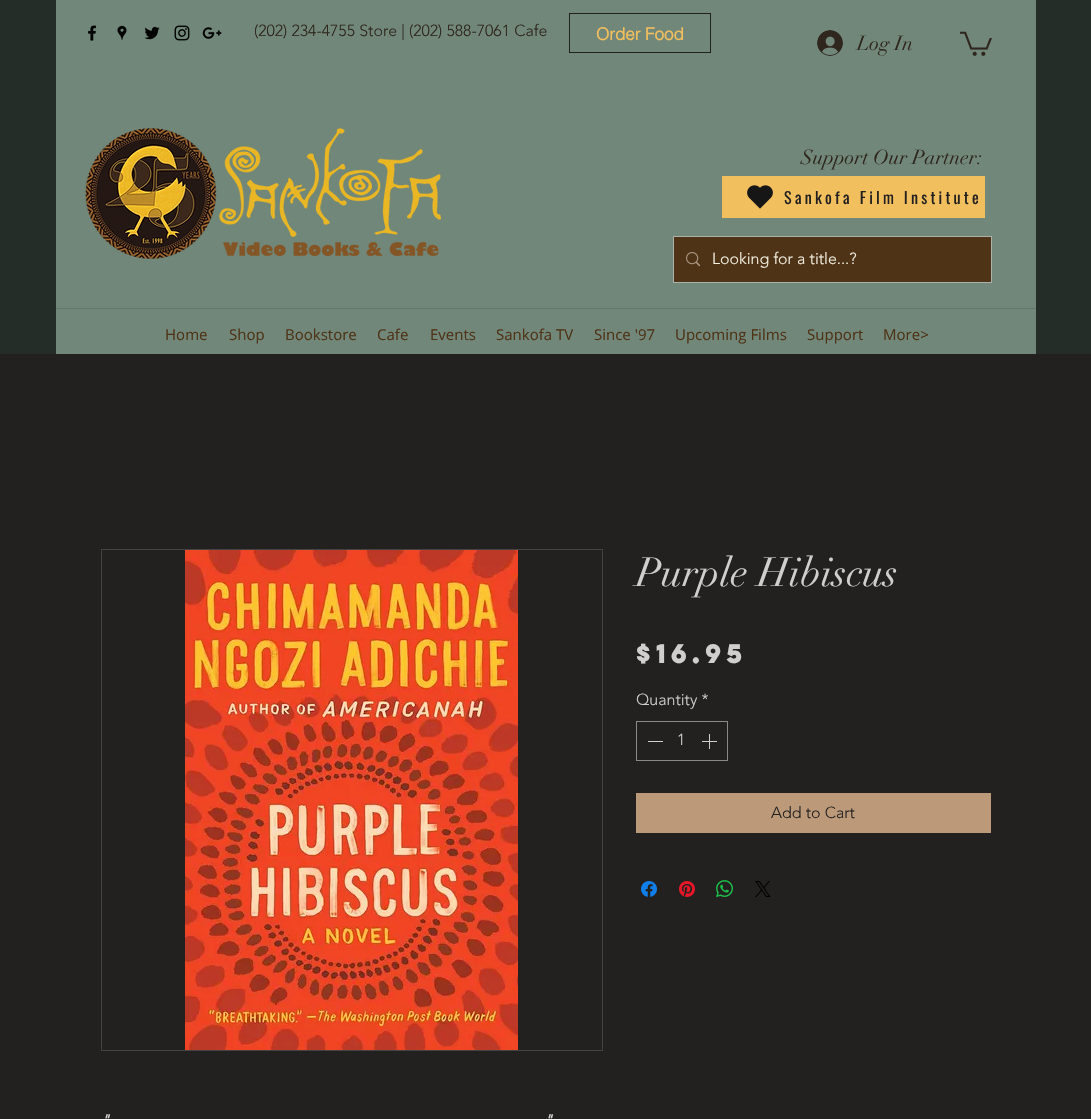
void draw(SkCanvas* canvas) {
    SkPaint paint;
    paint.setAntiAlias(true);
    auto face = [&](const char* family, int weight, float size, bool italic = false) {
        SkFontStyle style(weight, SkFontStyle::kNormal_Width,
            italic ? SkFontStyle::kItalic_Slant : SkFontStyle::kUpright_Slant);
        SkFont result(fontMgr->matchFamilyStyle(family, style), size);
        result.setSubpixel(true);
        return result;
    };
    auto write = [&](const char* s, float x, float y, const SkFont& font, SkColor color) {
        SkPaint ink(SkColor4f::FromColor(color));
        ink.setAntiAlias(true);
        canvas->drawString(s, x, y, font, ink);
    };
    auto writeSpaced = [&](const char* s, float x, float y, const SkFont& font, const SkPaint& ink, float letter, float word) {
        std::vector<SkGlyphID> glyphs(font.countText(s, strlen(s), SkTextEncoding::kUTF8));
        std::vector<float> xs(glyphs.size());
        font.textToGlyphs(s, strlen(s), SkTextEncoding::kUTF8, glyphs);
        font.getXPos(glyphs, xs, x);
        float extra = 0;
        for (size_t i = 0; i < glyphs.size(); i++) {
            xs[i] += extra;
            extra += letter + word * (glyphs[i] == font.unicharToGlyph(' '));
        }
        canvas->drawTextBlob(SkTextBlob::MakeFromPosHGlyphs(glyphs, xs, y, font), 0, 0, ink);
    };
    auto block = [&](float x, float y, float w, float h, SkColor color) {
        SkPaint ink(SkColor4f::FromColor(color));
        ink.setAntiAlias(true);
        canvas->drawRect(SkRect::MakeXYWH(x, y, w, h), ink);
    };
    auto paste = [&](const char* path, float x, float y, float w, float h) {
        auto image = SkImages::DeferredFromEncodedData(SkData::MakeFromFileName(path));
        canvas->drawImageRect(image, SkRect::MakeXYWH(x, y, w, h), SkSamplingOptions());
    };
    canvas->clear(SkColorSetRGB(37, 45, 40));
    block(56, 0, 980, 354, SkColorSetRGB(112, 135, 121));
    block(56, 308, 980, 1, SkColorSetRGB(102, 120, 107));
    paste("pic1.png", 88, 25, 9, 16);
    paste("pic2.png", 117, 25, 10, 15);
    paste("pic3.png", 144, 26, 16, 14);
    paste("pic4.png", 174, 25, 16, 16);
    paste("pic5.png", 202, 27, 20, 12);
    auto kFont1 = face("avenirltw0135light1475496", 300, 16);
    write("(202) 234-4755 Store | (202) 588-7061 Cafe", 254, 36, kFont1, SkColorSetRGB(47, 38, 30));
    paint.setStyle(SkPaint::kStroke_Style);
    paint.setStrokeWidth(1);
    paint.setColor(SkColorSetRGB(34, 33, 32));
    canvas->drawRect(SkRect::MakeXYWH(569.5f, 13.5f, 141, 39), paint);
    auto kFont2 = face("helvetica", 700, 17);
    write("Order Food", 596, 40, kFont2, SkColorSetRGB(242, 191, 94));
    paste("pic6.png", 817, 30, 26, 26);
    auto kFont3 = face("didot", 400, 20);
    write("Log In", 857, 50, kFont3, SkColorSetRGB(47, 38, 30));
    paste("pic7.png", 960, 31, 32, 25);
    paste("pic8.png", 85, 128, 357, 131);
    write("Support Our Partner:", 801, 164, kFont3, SkColorSetRGB(47, 38, 30));
    block(722, 176, 263, 42, SkColorSetRGB(242, 191, 94));
    paste("pic9.png", 747, 185, 26, 24);
    auto kFont4 = face("Oswald", 400, 16);
    paint.setStyle(SkPaint::kFill_Style);
    writeSpaced("Sankofa Film Institute", 784, 204, kFont4, paint, 3.2f, 0);
    paint.setStyle(SkPaint::kStroke_Style);
    paint.setColor(SkColorSetRGB(170, 178, 171));
    canvas->drawRect(SkRect::MakeXYWH(673.5f, 236.5f, 318, 46), paint);
    block(674, 237, 317, 45, SkColorSetRGB(79, 51, 22));
    paste("pic10.png", 686, 252, 14, 15);
    write("Looking for a title...?", 712, 264, kFont1, SkColorSetRGB(242, 240, 225));
    auto kFont5 = face("Open Sans", 400, 15);
    write("Home", 165, 340, kFont5, SkColorSetRGB(79, 51, 22));
    write("Shop", 229, 340, kFont5, SkColorSetRGB(79, 51, 22));
    write("Bookstore", 285, 340, kFont5, SkColorSetRGB(79, 51, 22));
    write("Cafe", 377, 340, kFont5, SkColorSetRGB(79, 51, 22));
    write("Events", 430, 340, kFont5, SkColorSetRGB(79, 51, 22));
    write("Sankofa TV", 496, 340, kFont5, SkColorSetRGB(79, 51, 22));
    write("Since '97", 594, 340, kFont5, SkColorSetRGB(79, 51, 22));
    write("Upcoming Films", 675, 340, kFont5, SkColorSetRGB(79, 51, 22));
    write("Support", 807, 340, kFont5, SkColorSetRGB(79, 51, 22));
    write("More>", 883, 340, kFont5, SkColorSetRGB(79, 51, 22));
    block(0, 354, 1091, 765, SkColorSetRGB(34, 33, 32));
    auto kFont6 = face("didot", 400, 40);
    write("Purple Hibiscus", 636, 586, kFont6, SkColorSetRGB(208, 207, 205));
    auto kFont7 = face("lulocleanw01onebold", 700, 24);
    write("$16.95", 636, 663, kFont7, SkColorSetRGB(208, 207, 205));
    write("Quantity *", 636, 705, kFont1, SkColorSetRGB(208, 207, 205));
    paint.setColor(SkColorSetRGB(138, 137, 136));
    canvas->drawRect(SkRect::MakeXYWH(636.5f, 721.5f, 91, 39), paint);
    block(648, 741, 15, 1, SkColorSetRGB(208, 207, 205));
    write("1", 677, 745, kFont1, SkColorSetRGB(208, 207, 205));
    paste("pic11.png", 702, 734, 15, 15);
    block(636, 793, 355, 40, SkColorSetRGB(188, 153, 121));
    write("Add to Cart", 771, 818, kFont1, SkColorSetRGB(34, 33, 32));
    paste("pic12.png", 641, 881, 16, 16);
    paste("pic13.png", 679, 881, 16, 16);
    paste("pic14.png", 716, 880, 17, 17);
    paste("pic15.png", 755, 881, 16, 16);
    paint.setColor(SkColorSetRGB(69, 68, 67));
    canvas->drawRect(SkRect::MakeXYWH(101.5f, 549.5f, 501, 501), paint);
    paste("pic16.png", 185, 550, 333, 500);
    auto kFont8 = face("avenirltw0135light1475496", 700, 16, true);
    write("\"", 101, 1126, kFont8, SkColorSetRGB(208, 207, 205));
    write("\"", 544, 1126, kFont8, SkColorSetRGB(208, 207, 205));
}
